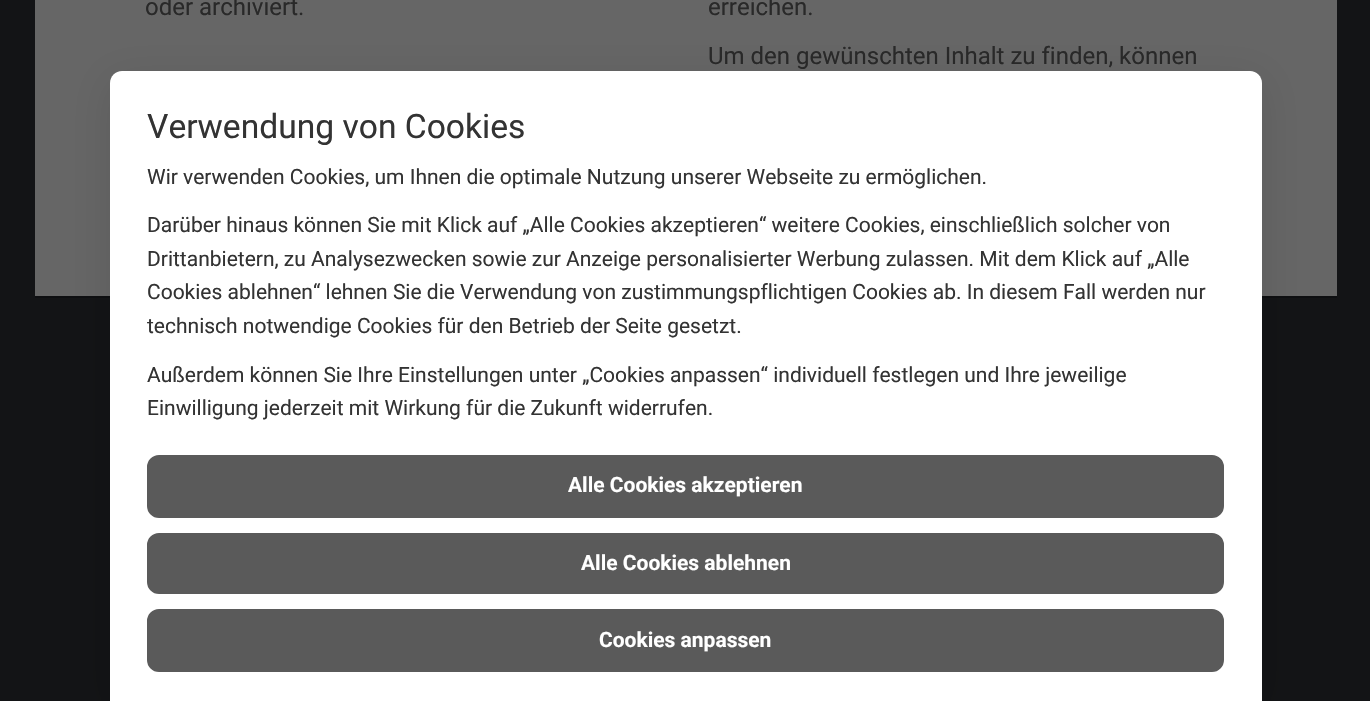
void draw(SkCanvas* canvas) {
    SkPaint paint;
    paint.setAntiAlias(true);
    auto face = [&](const char* family, int weight, float size, bool italic = false) {
        SkFontStyle style(weight, SkFontStyle::kNormal_Width,
            italic ? SkFontStyle::kItalic_Slant : SkFontStyle::kUpright_Slant);
        SkFont result(fontMgr->matchFamilyStyle(family, style), size);
        result.setSubpixel(true);
        return result;
    };
    auto write = [&](const char* s, float x, float y, const SkFont& font, SkColor color) {
        SkPaint ink(SkColor4f::FromColor(color));
        ink.setAntiAlias(true);
        canvas->drawString(s, x, y, font, ink);
    };
    auto block = [&](float x, float y, float w, float h, SkColor color) {
        SkPaint ink(SkColor4f::FromColor(color));
        ink.setAntiAlias(true);
        canvas->drawRect(SkRect::MakeXYWH(x, y, w, h), ink);
    };
    canvas->clear(SkColorSetRGB(19, 20, 22));
    block(35, 0, 1302, 296, SkColorSetRGB(102, 102, 102));
    auto kFont1 = face("Roboto", 400, 24);
    write("oder archiviert.", 145, 15, kFont1, SkColorSetRGB(41, 41, 41));
    write("erreichen.", 708, 15, kFont1, SkColorSetRGB(41, 41, 41));
    write("Um den gewünschten Inhalt zu finden, können", 708, 64, kFont1, SkColorSetRGB(41, 41, 41));
    block(35, 296, 1302, 2, SkColorSetRGB(14, 15, 17));
    paint.setColor(SkColorSetARGB(26, 0, 0, 0));
    paint.setMaskFilter(SkMaskFilter::MakeBlur(kNormal_SkBlurStyle, 21));
    canvas->drawRoundRect(SkRect::MakeXYWH(110, 80, 1152, 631), 12, 12, paint);
    paint.setMaskFilter(nullptr);
    paint.setColor(SK_ColorWHITE);
    canvas->drawPath(SkPathBuilder().moveTo(122, 71).lineTo(1250, 71).cubicTo(1256.5f, 71, 1262, 76.5f, 1262, 83).lineTo(1262, 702).lineTo(110, 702).lineTo(110, 83).cubicTo(110, 76.5f, 115.5f, 71, 122, 71).close().detach(), paint);
    auto kFont2 = face("Roboto", 400, 33.6f);
    write("Verwendung von Cookies", 147, 138, kFont2, SkColorSetRGB(51, 51, 51));
    auto kFont3 = face("Roboto", 400, 21);
    write("Wir verwenden Cookies, um Ihnen die optimale Nutzung unserer Webseite zu ermöglichen.", 147, 184, kFont3, SkColorSetRGB(51, 51, 51));
    write("Darüber hinaus können Sie mit Klick auf „Alle Cookies akzeptieren“ weitere Cookies, einschließlich solcher von", 147, 232, kFont3, SkColorSetRGB(51, 51, 51));
    write("Drittanbietern, zu Analysezwecken sowie zur Anzeige personalisierter Werbung zulassen. Mit dem Klick auf „Alle", 147, 266, kFont3, SkColorSetRGB(51, 51, 51));
    write("Cookies ablehnen“ lehnen Sie die Verwendung von zustimmungspflichtigen Cookies ab. In diesem Fall werden nur", 147, 299, kFont3, SkColorSetRGB(51, 51, 51));
    write("technisch notwendige Cookies für den Betrieb der Seite gesetzt.", 147, 333, kFont3, SkColorSetRGB(51, 51, 51));
    write("Außerdem können Sie Ihre Einstellungen unter „Cookies anpassen“ individuell festlegen und Ihre jeweilige", 147, 382, kFont3, SkColorSetRGB(51, 51, 51));
    write("Einwilligung jederzeit mit Wirkung für die Zukunft widerrufen.", 147, 415, kFont3, SkColorSetRGB(51, 51, 51));
    paint.setColor(SkColorSetRGB(90, 90, 90));
    canvas->drawRoundRect(SkRect::MakeXYWH(148, 456, 1075, 61), 11, 11, paint);
    paint.setStyle(SkPaint::kStroke_Style);
    paint.setStrokeWidth(2);
    canvas->drawRoundRect(SkRect::MakeXYWH(148, 456, 1075, 61), 11, 11, paint);
    auto kFont4 = face("Roboto", 700, 21);
    write("Alle Cookies akzeptieren", 568, 492, kFont4, SK_ColorWHITE);
    paint.setStyle(SkPaint::kFill_Style);
    canvas->drawRoundRect(SkRect::MakeXYWH(148, 534, 1075, 59), 11, 11, paint);
    paint.setStyle(SkPaint::kStroke_Style);
    canvas->drawRoundRect(SkRect::MakeXYWH(148, 534, 1075, 59), 11, 11, paint);
    write("Alle Cookies ablehnen", 581, 570, kFont4, SK_ColorWHITE);
    paint.setStyle(SkPaint::kFill_Style);
    canvas->drawRoundRect(SkRect::MakeXYWH(148, 610, 1075, 61), 11, 11, paint);
    paint.setStyle(SkPaint::kStroke_Style);
    canvas->drawRoundRect(SkRect::MakeXYWH(148, 610, 1075, 61), 11, 11, paint);
    write("Cookies anpassen", 599, 647, kFont4, SK_ColorWHITE);
}
